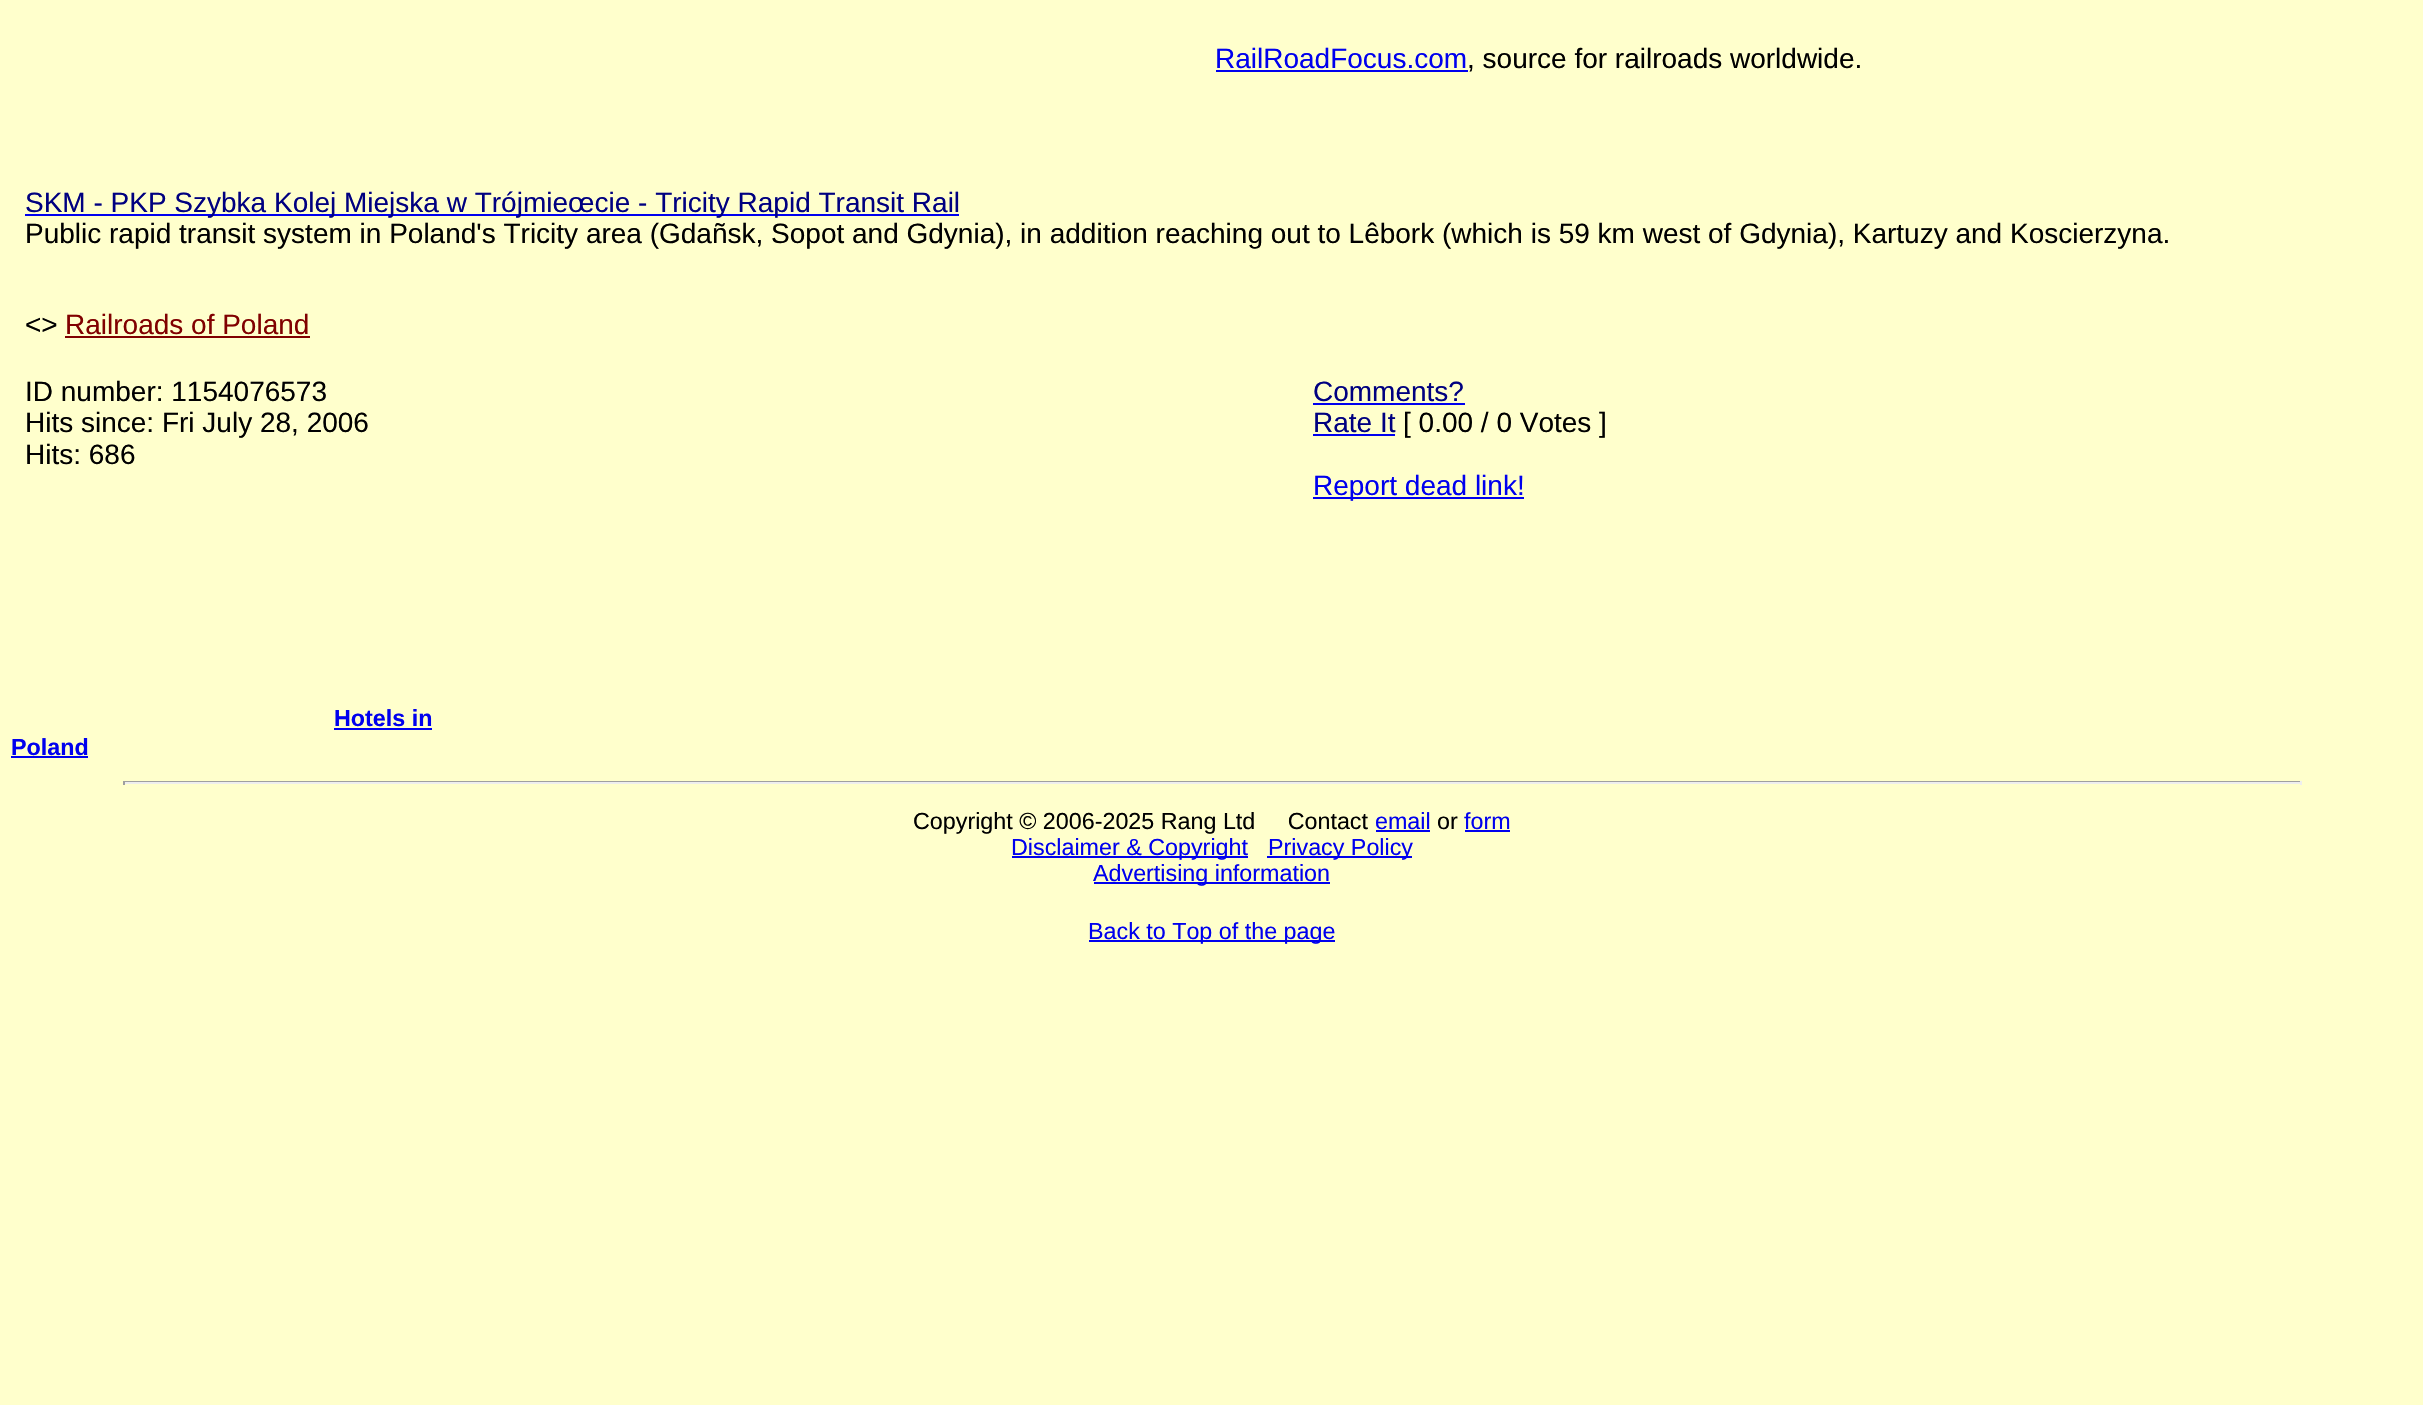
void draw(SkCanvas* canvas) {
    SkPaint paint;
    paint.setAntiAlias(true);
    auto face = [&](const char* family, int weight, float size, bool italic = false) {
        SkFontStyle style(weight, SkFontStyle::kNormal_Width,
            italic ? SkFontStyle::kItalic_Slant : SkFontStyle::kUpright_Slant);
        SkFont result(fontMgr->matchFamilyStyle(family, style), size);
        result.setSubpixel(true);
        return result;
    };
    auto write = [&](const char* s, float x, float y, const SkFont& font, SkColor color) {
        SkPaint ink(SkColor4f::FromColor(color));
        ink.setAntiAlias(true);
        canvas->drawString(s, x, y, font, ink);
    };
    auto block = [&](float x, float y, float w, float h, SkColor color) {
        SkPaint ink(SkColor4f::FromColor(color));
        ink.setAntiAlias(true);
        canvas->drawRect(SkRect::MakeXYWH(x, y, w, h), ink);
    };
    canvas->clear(SkColorSetRGB(255, 255, 204));
    auto kFont1 = face("Liberation Sans", 400, 28);
    write("RailRoadFocus.com", 1215, 68, kFont1, SkColorSetRGB(0, 0, 238));
    block(1216, 70, 252, 2, SkColorSetRGB(0, 0, 238));
    write(", source for railroads worldwide.", 1467, 68, kFont1, SK_ColorBLACK);
    block(25, 214, 934, 2, SkColorSetRGB(0, 0, 238));
    write("SKM - PKP Szybka Kolej Miejska w Trójmieœcie - Tricity Rapid Transit Rail", 25, 212, kFont1, SkColorSetRGB(0, 0, 128));
    write("Public rapid transit system in Poland's Tricity area (Gdañsk, Sopot and Gdynia), in addition reaching out to Lêbork (which is 59 km west of Gdynia), Kartuzy and Koscierzyna.", 25, 243, kFont1, SK_ColorBLACK);
    write("<>", 25, 334, kFont1, SK_ColorBLACK);
    write("Railroads of Poland", 65, 334, kFont1, SkColorSetRGB(128, 0, 0));
    block(65, 336, 245, 2, SkColorSetRGB(128, 0, 0));
    write("ID number: 1154076573", 25, 401, kFont1, SK_ColorBLACK);
    write("Hits since: Fri July 28, 2006", 25, 432, kFont1, SK_ColorBLACK);
    write("Hits: 686", 25, 464, kFont1, SK_ColorBLACK);
    write("Comments?", 1313, 401, kFont1, SkColorSetRGB(0, 0, 128));
    block(1313, 403, 152, 2, SkColorSetRGB(0, 0, 238));
    write("Rate It", 1313, 432, kFont1, SkColorSetRGB(0, 0, 128));
    block(1313, 434, 82, 2, SkColorSetRGB(0, 0, 238));
    write("[ 0.00 / 0 Votes ]", 1403, 432, kFont1, SK_ColorBLACK);
    block(1313, 497, 211, 2, SkColorSetRGB(0, 0, 238));
    write("Report dead link!", 1313, 495, kFont1, SkColorSetRGB(0, 0, 238));
    auto kFont2 = face("Liberation Sans", 700, 23.3f);
    write("Hotels in", 334, 726, kFont2, SkColorSetRGB(0, 0, 238));
    block(334, 728, 98, 2, SkColorSetRGB(0, 0, 238));
    write("Poland", 11, 755, kFont2, SkColorSetRGB(0, 0, 238));
    block(11, 756, 77, 2, SkColorSetRGB(0, 0, 238));
    block(123, 781, 2178, 1, SkColorSetRGB(159, 159, 159));
    block(2300, 781, 2, 4, SkColorSetRGB(238, 238, 238));
    block(123, 782, 2178, 2, SkColorSetRGB(238, 238, 238));
    block(123, 781, 2, 4, SkColorSetRGB(159, 159, 159));
    auto kFont3 = face("Liberation Sans", 400, 23.3f);
    write("Copyright © 2006-2025 Rang Ltd     Contact", 913, 829, kFont3, SK_ColorBLACK);
    write("email", 1375, 829, kFont3, SkColorSetRGB(0, 0, 238));
    block(1376, 830, 54, 2, SkColorSetRGB(0, 0, 238));
    write("or", 1437, 829, kFont3, SK_ColorBLACK);
    write("form", 1464, 829, kFont3, SkColorSetRGB(0, 0, 238));
    block(1465, 830, 45, 2, SkColorSetRGB(0, 0, 238));
    block(1012, 856, 236, 2, SkColorSetRGB(0, 0, 238));
    write("Disclaimer & Copyright", 1011, 855, kFont3, SkColorSetRGB(0, 0, 238));
    block(1267, 856, 145, 2, SkColorSetRGB(0, 0, 238));
    write("Privacy Policy", 1268, 855, kFont3, SkColorSetRGB(0, 0, 238));
    block(1094, 882, 236, 2, SkColorSetRGB(0, 0, 238));
    write("Advertising information", 1093, 881, kFont3, SkColorSetRGB(0, 0, 238));
    block(1089, 940, 246, 2, SkColorSetRGB(0, 0, 238));
    write("Back to Top of the page", 1088, 939, kFont3, SkColorSetRGB(0, 0, 238));
}
